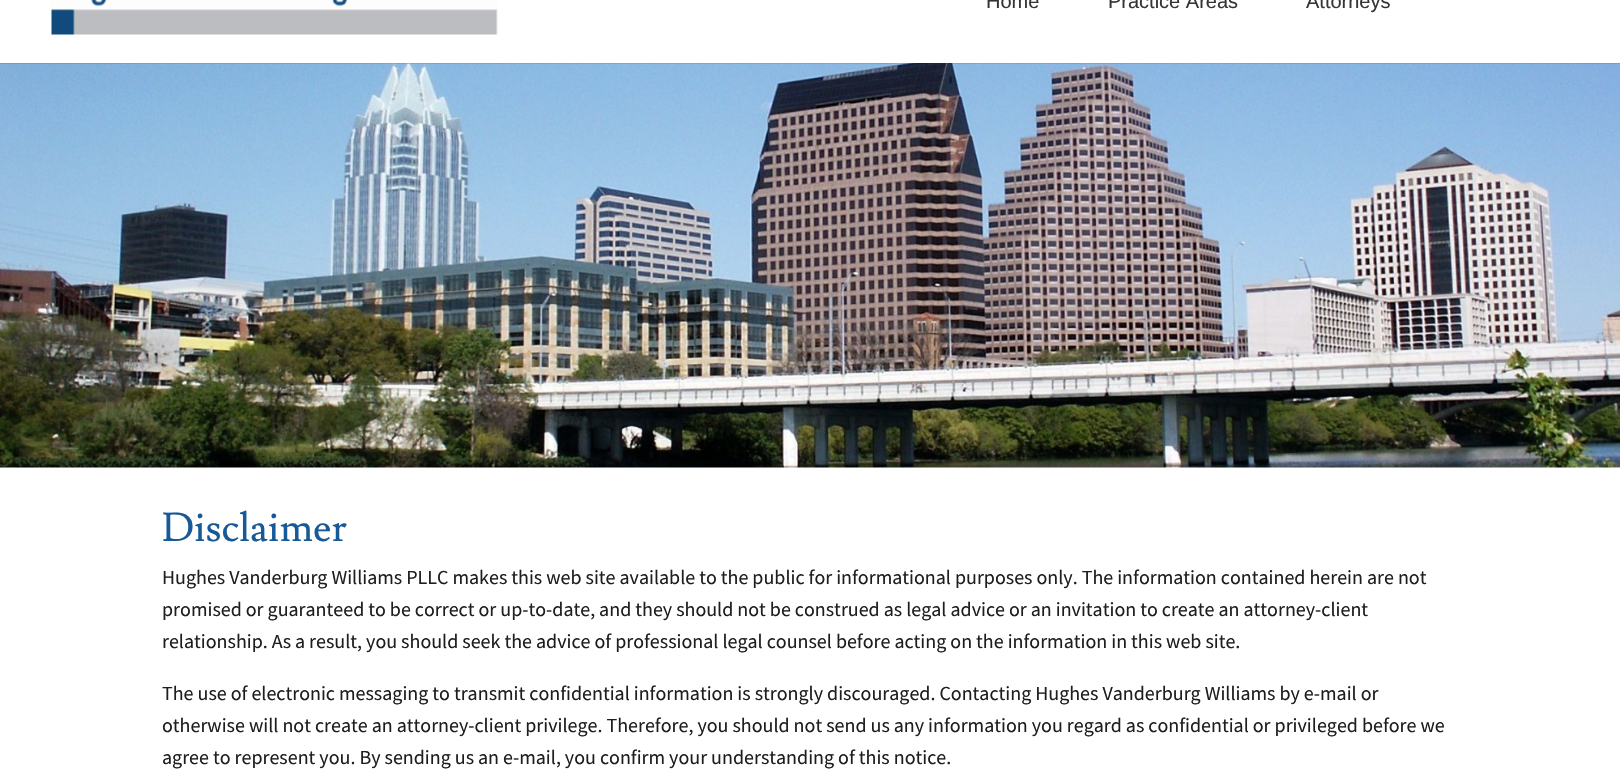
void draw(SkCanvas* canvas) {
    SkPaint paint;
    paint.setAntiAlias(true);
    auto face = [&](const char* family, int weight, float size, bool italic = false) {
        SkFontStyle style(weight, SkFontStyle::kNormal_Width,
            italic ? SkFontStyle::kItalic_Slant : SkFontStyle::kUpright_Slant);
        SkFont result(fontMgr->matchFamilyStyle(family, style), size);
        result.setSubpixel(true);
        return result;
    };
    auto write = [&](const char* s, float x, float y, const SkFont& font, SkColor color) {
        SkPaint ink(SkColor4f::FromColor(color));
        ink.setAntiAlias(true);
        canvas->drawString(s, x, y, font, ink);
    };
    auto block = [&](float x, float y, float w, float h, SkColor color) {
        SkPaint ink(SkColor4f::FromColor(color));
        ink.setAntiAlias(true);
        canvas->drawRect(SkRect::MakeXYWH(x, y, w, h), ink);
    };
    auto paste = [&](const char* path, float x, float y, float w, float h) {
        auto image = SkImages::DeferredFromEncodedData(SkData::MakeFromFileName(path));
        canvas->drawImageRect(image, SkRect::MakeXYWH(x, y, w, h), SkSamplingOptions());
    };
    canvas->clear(SK_ColorWHITE);
    paste("pic2.png", 0, 63, 1620, 405);
    block(0, 63, 1620, 1, SkColorSetARGB(26, 0, 0, 0));
    paste("pic1.png", 51, 0, 447, 35);
    auto kFont1 = face("Liberation Sans", 400, 20);
    write("Home", 986, 8, kFont1, SkColorSetRGB(53, 53, 53));
    write("Practice Areas", 1108, 8, kFont1, SkColorSetRGB(53, 53, 53));
    write("Attorneys", 1306, 8, kFont1, SkColorSetRGB(53, 53, 53));
    auto kFont2 = face("Lusitana", 400, 40);
    write("Disclaimer", 162, 541, kFont2, SkColorSetRGB(23, 90, 151));
    auto kFont3 = face("Source Sans Pro", 400, 20);
    write("Hughes Vanderburg Williams PLLC makes this web site available to the public for informational purposes only. The information contained herein are not", 162, 584, kFont3, SkColorSetRGB(30, 30, 30));
    write("promised or guaranteed to be correct or up-to-date, and they should not be construed as legal advice or an invitation to create an attorney-client", 162, 616, kFont3, SkColorSetRGB(30, 30, 30));
    write("relationship. As a result, you should seek the advice of professional legal counsel before acting on the information in this web site.", 162, 648, kFont3, SkColorSetRGB(30, 30, 30));
    write("The use of electronic messaging to transmit confidential information is strongly discouraged. Contacting Hughes Vanderburg Williams by e-mail or", 162, 700, kFont3, SkColorSetRGB(30, 30, 30));
    write("otherwise will not create an attorney-client privilege. Therefore, you should not send us any information you regard as confidential or privileged before we", 162, 732, kFont3, SkColorSetRGB(30, 30, 30));
    write("agree to represent you. By sending us an e-mail, you confirm your understanding of this notice.", 162, 764, kFont3, SkColorSetRGB(30, 30, 30));
}
